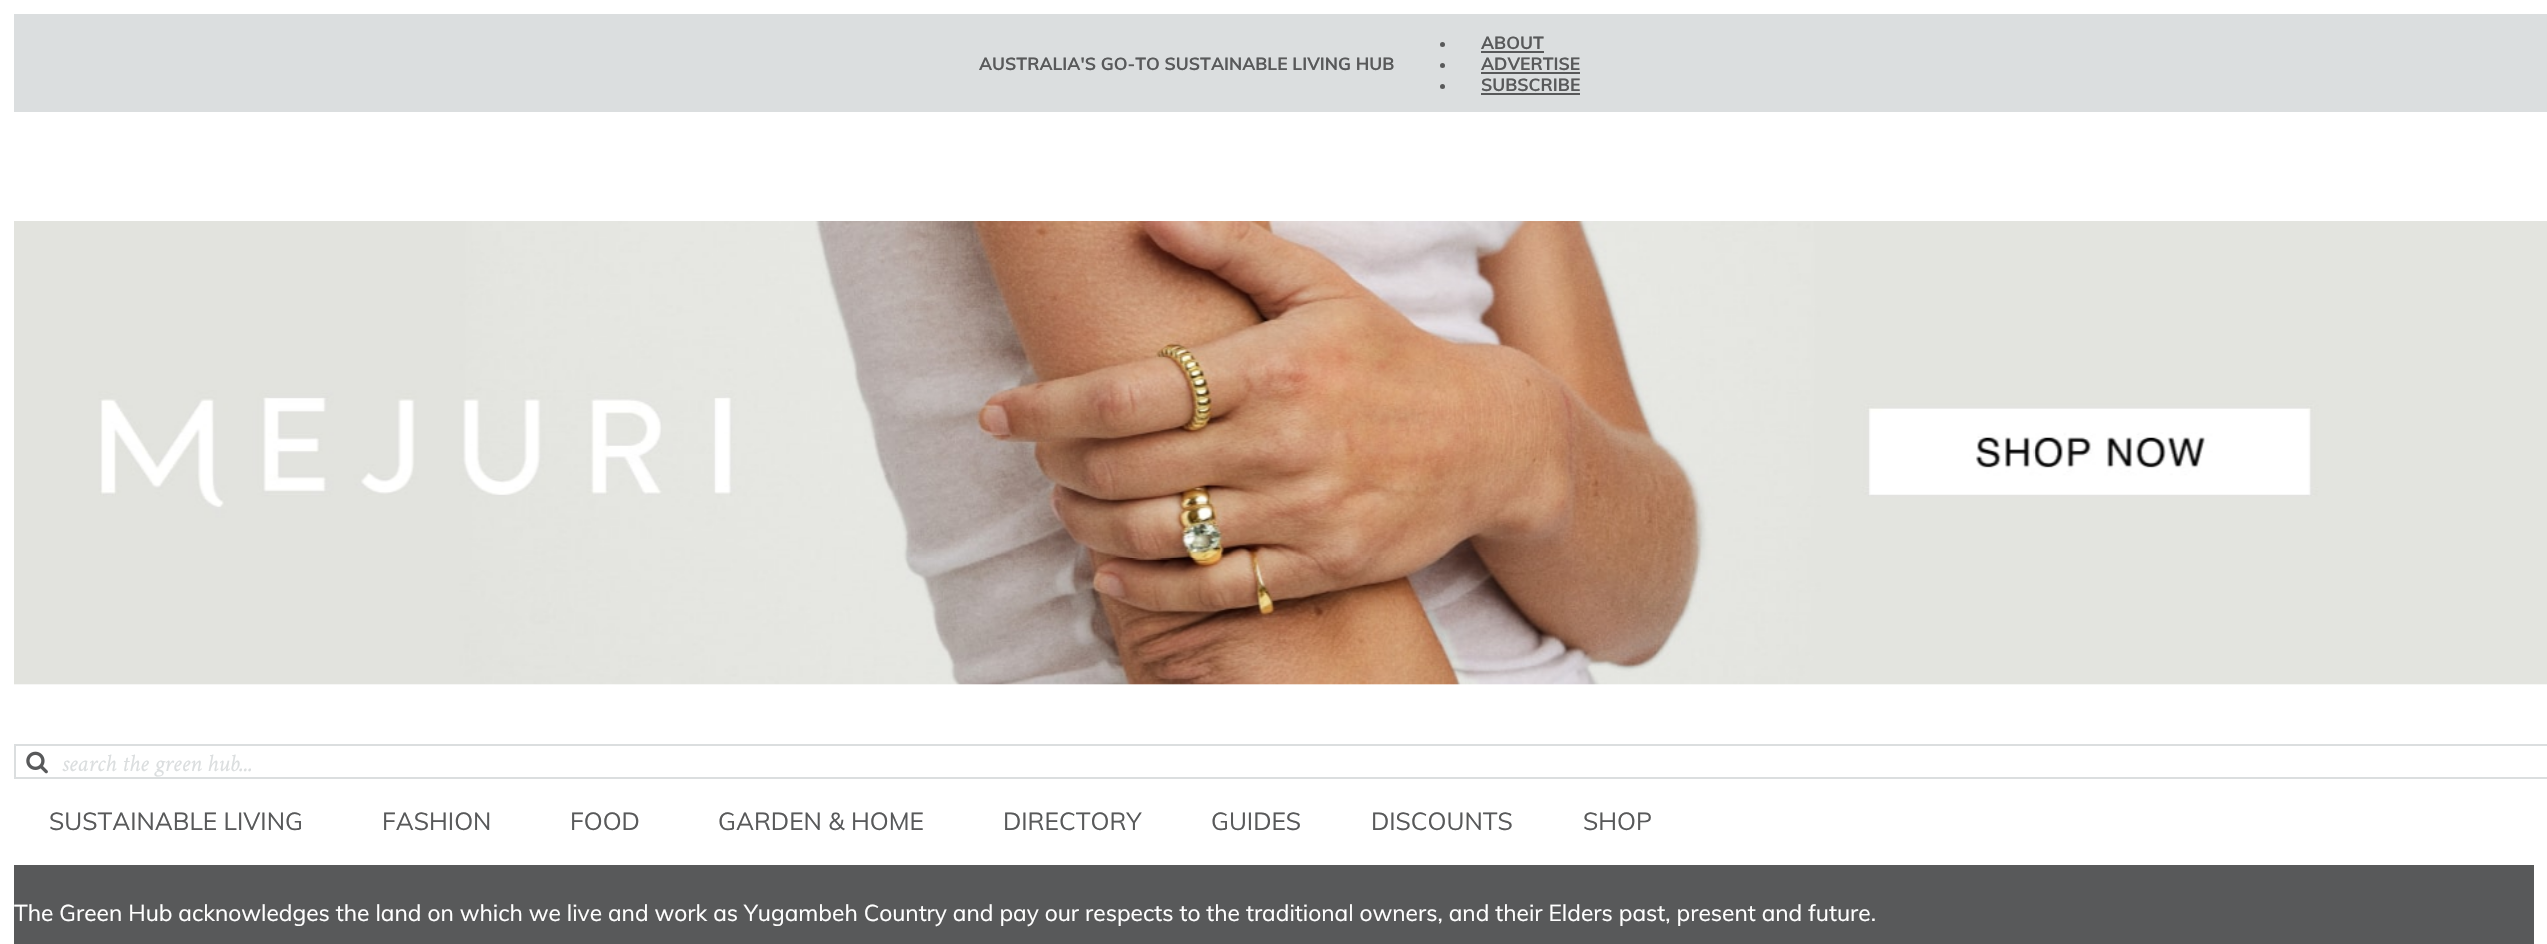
void draw(SkCanvas* canvas) {
    SkPaint paint;
    paint.setAntiAlias(true);
    auto face = [&](const char* family, int weight, float size, bool italic = false) {
        SkFontStyle style(weight, SkFontStyle::kNormal_Width,
            italic ? SkFontStyle::kItalic_Slant : SkFontStyle::kUpright_Slant);
        SkFont result(fontMgr->matchFamilyStyle(family, style), size);
        result.setSubpixel(true);
        return result;
    };
    auto write = [&](const char* s, float x, float y, const SkFont& font, SkColor color) {
        SkPaint ink(SkColor4f::FromColor(color));
        ink.setAntiAlias(true);
        canvas->drawString(s, x, y, font, ink);
    };
    auto block = [&](float x, float y, float w, float h, SkColor color) {
        SkPaint ink(SkColor4f::FromColor(color));
        ink.setAntiAlias(true);
        canvas->drawRect(SkRect::MakeXYWH(x, y, w, h), ink);
    };
    auto paste = [&](const char* path, float x, float y, float w, float h) {
        auto image = SkImages::DeferredFromEncodedData(SkData::MakeFromFileName(path));
        canvas->drawImageRect(image, SkRect::MakeXYWH(x, y, w, h), SkSamplingOptions());
    };
    canvas->clear(SK_ColorWHITE);
    block(14, 14, 2533, 98, SkColorSetRGB(219, 222, 223));
    auto kFont1 = face("Muli", 700, 17.5f);
    write("AUSTRALIA'S GO-TO SUSTAINABLE LIVING HUB", 979, 70, kFont1, SkColorSetRGB(88, 89, 90));
    paint.setColor(SkColorSetRGB(88, 89, 90));
    canvas->drawCircle(1442.5f, 44.5f, 2.5f, paint);
    write("ABOUT", 1481, 49, kFont1, SkColorSetRGB(88, 89, 90));
    block(1481, 51, 63, 2, SkColorSetRGB(88, 89, 90));
    canvas->drawCircle(1442.5f, 65.5f, 2.5f, paint);
    write("ADVERTISE", 1481, 70, kFont1, SkColorSetRGB(88, 89, 90));
    block(1481, 72, 99, 2, SkColorSetRGB(88, 89, 90));
    canvas->drawCircle(1442.5f, 86.5f, 2.5f, paint);
    write("SUBSCRIBE", 1481, 91, kFont1, SkColorSetRGB(88, 89, 90));
    block(1481, 93, 99, 2, SkColorSetRGB(88, 89, 90));
    paste("pic1.png", 14, 221, 2533, 464);
    paint.setStyle(SkPaint::kStroke_Style);
    paint.setStrokeWidth(2);
    paint.setColor(SkColorSetRGB(219, 222, 223));
    canvas->drawRect(SkRect::MakeXYWH(15, 745, 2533, 33), paint);
    paste("pic2.png", 26, 751, 22, 23);
    auto kFont2 = face("Crimson Text", 400, 24.5f, true);
    write("search the green hub...", 62, 771, kFont2, SkColorSetRGB(219, 222, 223));
    auto kFont3 = face("Muli", 400, 24.5f);
    write("SUSTAINABLE LIVING", 49, 830, kFont3, SkColorSetRGB(88, 89, 90));
    write("FASHION", 382, 830, kFont3, SkColorSetRGB(88, 89, 90));
    write("FOOD", 570, 830, kFont3, SkColorSetRGB(88, 89, 90));
    write("GARDEN & HOME", 718, 830, kFont3, SkColorSetRGB(88, 89, 90));
    write("DIRECTORY", 1003, 830, kFont3, SkColorSetRGB(88, 89, 90));
    write("GUIDES", 1211, 830, kFont3, SkColorSetRGB(88, 89, 90));
    write("DISCOUNTS", 1371, 830, kFont3, SkColorSetRGB(88, 89, 90));
    write("SHOP", 1583, 830, kFont3, SkColorSetRGB(88, 89, 90));
    block(14, 865, 2520, 79, SkColorSetRGB(88, 89, 90));
    auto kFont4 = face("Muli", 400, 22.75f);
    write("The Green Hub acknowledges the land on which we live and work as Yugambeh Country and pay our respects to the traditional owners, and their Elders past, present and future.", 14, 921, kFont4, SK_ColorWHITE);
}
